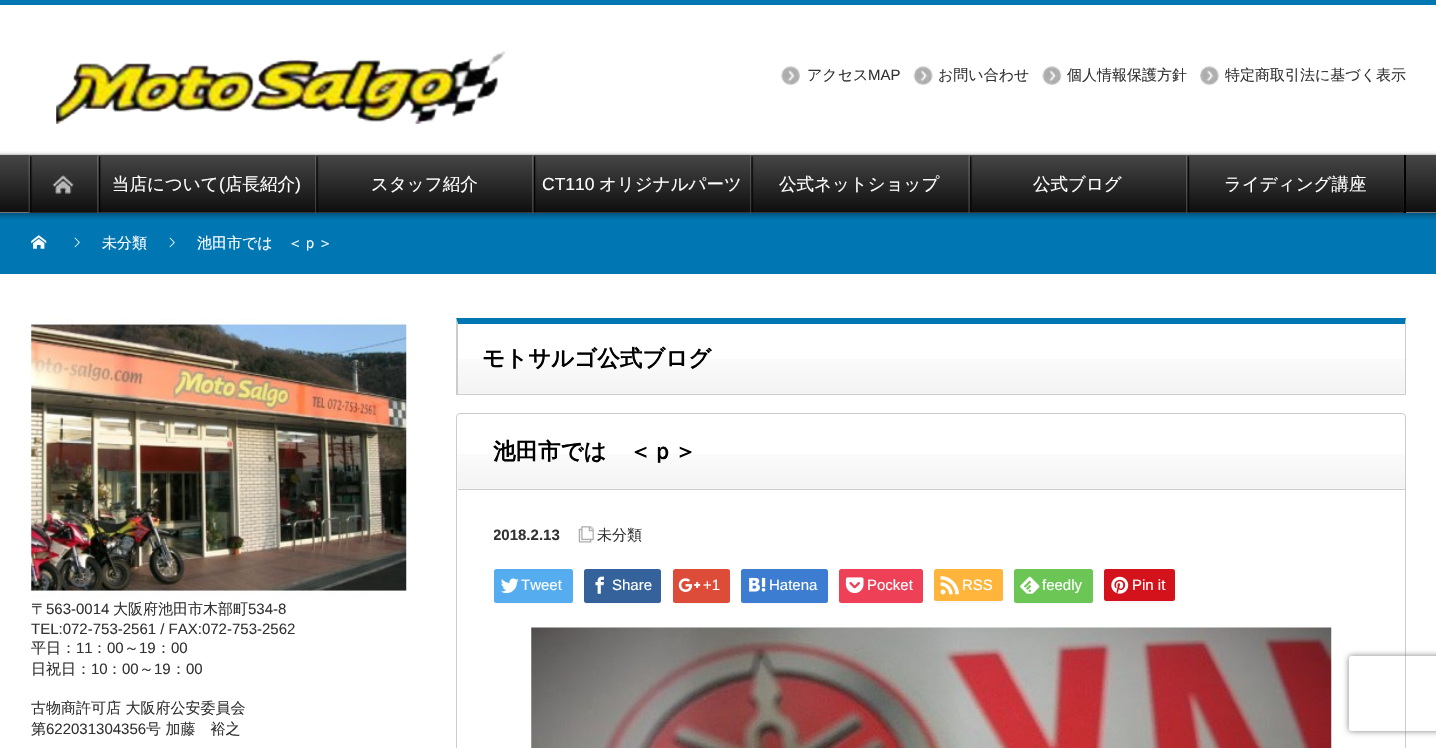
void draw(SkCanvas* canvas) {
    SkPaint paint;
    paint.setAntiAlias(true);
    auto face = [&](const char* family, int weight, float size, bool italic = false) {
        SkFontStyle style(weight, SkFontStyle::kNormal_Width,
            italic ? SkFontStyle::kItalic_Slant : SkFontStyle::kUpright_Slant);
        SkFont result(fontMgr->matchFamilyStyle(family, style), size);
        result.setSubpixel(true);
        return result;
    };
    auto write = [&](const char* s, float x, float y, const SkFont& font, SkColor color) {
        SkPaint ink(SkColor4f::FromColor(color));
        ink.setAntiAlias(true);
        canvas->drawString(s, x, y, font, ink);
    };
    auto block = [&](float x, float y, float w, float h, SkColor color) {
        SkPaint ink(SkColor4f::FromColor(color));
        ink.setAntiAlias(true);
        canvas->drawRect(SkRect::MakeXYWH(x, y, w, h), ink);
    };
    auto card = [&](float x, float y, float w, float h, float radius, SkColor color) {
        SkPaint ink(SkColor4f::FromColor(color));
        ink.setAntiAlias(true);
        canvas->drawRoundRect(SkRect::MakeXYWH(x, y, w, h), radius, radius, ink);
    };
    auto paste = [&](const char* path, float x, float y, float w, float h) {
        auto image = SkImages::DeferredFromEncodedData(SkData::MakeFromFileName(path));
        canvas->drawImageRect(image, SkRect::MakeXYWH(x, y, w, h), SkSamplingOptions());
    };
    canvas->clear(SK_ColorWHITE);
    paste("pic1.png", 0, 155, 1436, 58);
    block(0, 0, 1436, 5, SkColorSetRGB(0, 119, 179));
    paste("pic2.png", 0, 151, 1436, 4);
    paste("pic3.png", 56, 49, 452, 75);
    paste("pic4.png", 781, 66, 19, 19);
    auto kFont1 = face("WenQuanYi Zen Hei", 500, 15);
    write("アクセス", 807, 80, kFont1, SkColorSetRGB(51, 51, 51));
    auto kFont2 = face("Liberation Sans", 400, 15);
    write("MAP", 868, 80, kFont2, SkColorSetRGB(51, 51, 51));
    paste("pic5.png", 913, 66, 20, 19);
    write("お問い合わせ", 938, 80, kFont1, SkColorSetRGB(51, 51, 51));
    paste("pic6.png", 1042, 66, 20, 19);
    write("個人情報保護方針", 1067, 80, kFont1, SkColorSetRGB(51, 51, 51));
    paste("pic7.png", 1200, 66, 19, 19);
    write("特定商取引法に基づく表示", 1225, 80, kFont1, SkColorSetRGB(51, 51, 51));
    block(0, 213, 1436, 61, SkColorSetRGB(0, 119, 179));
    paste("pic23.png", 0, 212, 1436, 8);
    paste("pic8.png", 28, 155, 70, 58);
    paste("pic9.png", 28, 156, 70, 57);
    paste("pic10.png", 52, 175, 22, 19);
    block(1403, 155, 3, 58, SkColorSetARGB(242, 0, 0, 0));
    paste("pic11.png", 97, 155, 218, 58);
    paste("pic12.png", 97, 155, 218, 58);
    auto kFont3 = face("WenQuanYi Zen Hei", 500, 17.5f);
    write("当店について", 112, 190, kFont3, SK_ColorWHITE);
    auto kFont4 = face("Liberation Sans", 400, 17.5f);
    write("(", 219, 190, kFont4, SK_ColorWHITE);
    write("店長紹介", 225, 190, kFont3, SK_ColorWHITE);
    write(")", 295, 190, kFont4, SK_ColorWHITE);
    paste("pic13.png", 315, 155, 218, 58);
    paste("pic14.png", 315, 155, 218, 58);
    write("スタッフ紹介", 371, 190, kFont3, SK_ColorWHITE);
    paste("pic15.png", 532, 155, 218, 58);
    paste("pic16.png", 532, 155, 218, 58);
    write("CT110", 542, 190, kFont4, SK_ColorWHITE);
    write("オリジナルパーツ", 599, 190, kFont3, SK_ColorWHITE);
    paste("pic17.png", 750, 155, 219, 58);
    paste("pic18.png", 750, 155, 219, 58);
    write("公式ネットショップ", 779, 190, kFont3, SK_ColorWHITE);
    paste("pic19.png", 968, 155, 219, 58);
    paste("pic20.png", 969, 155, 218, 58);
    write("公式ブログ", 1033, 190, kFont3, SK_ColorWHITE);
    paste("pic21.png", 1186, 155, 218, 58);
    paste("pic22.png", 1186, 155, 218, 58);
    write("ライディング講座", 1224, 190, kFont3, SK_ColorWHITE);
    paste("pic24.png", 31, 235, 16, 14);
    paste("pic25.png", 74, 237, 6, 11);
    write("未分類", 102, 248, kFont1, SK_ColorWHITE);
    paste("pic25.png", 169, 237, 6, 11);
    write("池田市では　＜ｐ＞", 197, 248, kFont1, SK_ColorWHITE);
    paste("pic26.png", 458, 359, 947, 35);
    paint.setColor(SkColorSetRGB(0, 119, 179));
    canvas->drawPath(SkPathBuilder().moveTo(456, 318).lineTo(1406, 318).lineTo(1405, 324).lineTo(458, 324).close().detach(), paint);
    paint.setColor(SkColorSetRGB(204, 204, 204));
    canvas->drawPath(SkPathBuilder().moveTo(1406, 318).lineTo(1406, 395).lineTo(1405, 394).lineTo(1405, 324).close().detach(), paint);
    block(456, 394, 950, 1, SkColorSetRGB(204, 204, 204));
    canvas->drawPath(SkPathBuilder().moveTo(456, 395).lineTo(456, 318).lineTo(458, 324).lineTo(458, 394).close().detach(), paint);
    auto kFont5 = face("WenQuanYi Zen Hei", 700, 22.5f);
    write("モトサルゴ公式ブログ", 482, 366, kFont5, SK_ColorBLACK);
    paint.setStyle(SkPaint::kStroke_Style);
    paint.setStrokeWidth(1);
    canvas->drawRoundRect(SkRect::MakeXYWH(456.5f, 413.5f, 949, 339), 3.5f, 3.5f, paint);
    paste("pic27.png", 457, 454, 948, 35);
    block(458, 489, 947, 1, SkColorSetRGB(204, 204, 204));
    write("池田市では　＜ｐ＞", 493, 459, kFont5, SK_ColorBLACK);
    canvas->save();
    canvas->clipRect(SkRect::MakeXYWH(494, 515, 167, 39));
    auto kFont6 = face("Liberation Sans", 700, 15);
    write("2018.2.13", 493, 540, kFont6, SkColorSetRGB(51, 51, 51));
    canvas->restore();
    paste("pic28.png", 578, 526, 16, 17);
    write("未分類", 597, 540, kFont1, SkColorSetRGB(51, 51, 51));
    paint.setStyle(SkPaint::kFill_Style);
    paint.setColor(SkColorSetRGB(247, 247, 247));
    canvas->drawPath(SkPathBuilder().moveTo(494, 601).lineTo(494, 602).cubicTo(494, 603, 495, 604, 496, 604).lineTo(570, 604).cubicTo(572, 604, 573, 603, 573, 602).lineTo(573, 572).lineTo(572, 571).lineTo(572, 595).cubicTo(572, 606, 571, 602, 558, 602).lineTo(509, 602).cubicTo(508, 602, 496, 605, 494, 601).close().detach(), paint);
    card(494, 569, 79, 34, 2.5f, SkColorSetRGB(85, 172, 238));
    paste("pic29.png", 501, 578, 18, 16);
    write("Tweet", 521, 590, kFont2, SK_ColorWHITE);
    canvas->drawPath(SkPathBuilder().moveTo(584, 601).cubicTo(584, 603, 585, 604, 586, 604).lineTo(646, 604).cubicTo(647, 604, 661, 607, 661, 601).lineTo(660, 602).lineTo(598, 602).cubicTo(598, 602, 586, 605, 584, 601).close().detach(), paint);
    card(584, 569, 77, 34, 2.5f, SkColorSetRGB(53, 98, 154));
    paste("pic30.png", 595, 576, 9, 18);
    write("Share", 612, 590, kFont2, SK_ColorWHITE);
    canvas->drawPath(SkPathBuilder().moveTo(673, 602).lineTo(673, 603).lineTo(676, 604).lineTo(719, 604).cubicTo(724, 604, 730, 606, 730, 600).cubicTo(730, 601, 729, 602, 728, 602).lineTo(675, 602).close().detach(), paint);
    card(673, 569, 57, 34, 2.5f, SkColorSetRGB(221, 75, 57));
    paste("pic31.png", 678, 578, 23, 14);
    write("+1", 703, 590, kFont2, SK_ColorWHITE);
    canvas->drawPath(SkPathBuilder().moveTo(741, 571).lineTo(741, 592).cubicTo(741, 607, 739, 604, 757, 604).lineTo(812, 604).cubicTo(832, 604, 828, 607, 828, 587).cubicTo(828, 584, 829, 573, 827, 571).lineTo(828, 590).cubicTo(828, 606, 829, 602, 811, 602).lineTo(744, 602).cubicTo(740, 602, 741, 597, 741, 595).close().detach(), paint);
    card(741, 569, 87, 34, 2.5f, SkColorSetRGB(60, 125, 209));
    paste("pic32.png", 749, 577, 17, 15);
    write("Hatena", 769, 590, kFont2, SK_ColorWHITE);
    canvas->drawPath(SkPathBuilder().moveTo(839, 601).lineTo(839, 602).cubicTo(839, 603, 840, 604, 842, 604).lineTo(920, 604).cubicTo(922, 604, 923, 603, 923, 602).lineTo(923, 572).lineTo(922, 571).lineTo(922, 595).cubicTo(922, 597, 924, 602, 920, 602).lineTo(841, 602).cubicTo(840, 602, 839, 602, 839, 601).close().detach(), paint);
    card(839, 569, 84, 34, 2.5f, SkColorSetRGB(238, 64, 86));
    paste("pic33.png", 845, 577, 19, 17);
    write("Pocket", 867, 590, kFont2, SK_ColorWHITE);
    canvas->drawPath(SkPathBuilder().moveTo(934, 600).cubicTo(934, 606, 945, 603, 947, 603).lineTo(990, 603).cubicTo(1007, 603, 1003, 605, 1003, 586).cubicTo(1003, 584, 1004, 573, 1002, 571).lineTo(1002, 594).cubicTo(1002, 604, 1001, 601, 989, 601).lineTo(947, 601).cubicTo(945, 601, 936, 603, 934, 600).close().detach(), paint);
    card(934, 569, 69, 32, 2.5f, SkColorSetRGB(255, 181, 60));
    paste("pic34.png", 940, 576, 19, 19);
    write("RSS", 962, 590, kFont2, SK_ColorWHITE);
    canvas->drawPath(SkPathBuilder().moveTo(1014, 601).lineTo(1014, 602).cubicTo(1014, 603, 1015, 604, 1016, 604).lineTo(1090, 604).cubicTo(1092, 604, 1093, 603, 1093, 602).lineTo(1093, 572).lineTo(1092, 571).lineTo(1092, 595).cubicTo(1092, 606, 1091, 602, 1078, 602).lineTo(1029, 602).cubicTo(1028, 602, 1016, 605, 1014, 601).close().detach(), paint);
    card(1014, 569, 79, 34, 2.5f, SkColorSetRGB(108, 198, 85));
    paste("pic35.png", 1020, 576, 20, 18);
    write("feedly", 1042, 590, kFont2, SK_ColorWHITE);
    canvas->drawPath(SkPathBuilder().moveTo(1104, 600).cubicTo(1104, 601, 1104, 603, 1106, 603).lineTo(1162, 603).cubicTo(1168, 603, 1175, 606, 1175, 599).lineTo(1174, 601).lineTo(1172, 601).lineTo(1106, 601).close().detach(), paint);
    card(1104, 569, 71, 32, 2.5f, SkColorSetRGB(212, 18, 28));
    paste("pic36.png", 1111, 576, 18, 18);
    write("Pin it", 1132, 590, kFont2, SK_ColorWHITE);
    paste("pic37.png", 531, 627, 801, 121);
    paste("pic38.png", 31, 318, 376, 280);
    write("〒", 31, 614, kFont1, SkColorSetRGB(51, 51, 51));
    write("563-0014", 46, 614, kFont2, SkColorSetRGB(51, 51, 51));
    write("大阪府池田市木部町", 113, 614, kFont1, SkColorSetRGB(51, 51, 51));
    write("534-8", 248, 614, kFont2, SkColorSetRGB(51, 51, 51));
    write("TEL:072-753-2561 / FAX:072-753-2562", 31, 634, kFont2, SkColorSetRGB(51, 51, 51));
    write("平日：", 31, 653, kFont1, SkColorSetRGB(51, 51, 51));
    write("11", 76, 653, kFont2, SkColorSetRGB(51, 51, 51));
    write("：", 92, 653, kFont1, SkColorSetRGB(51, 51, 51));
    write("00", 107, 653, kFont2, SkColorSetRGB(51, 51, 51));
    write("～", 124, 653, kFont1, SkColorSetRGB(51, 51, 51));
    write("19", 139, 653, kFont2, SkColorSetRGB(51, 51, 51));
    write("：", 156, 653, kFont1, SkColorSetRGB(51, 51, 51));
    write("00", 171, 653, kFont2, SkColorSetRGB(51, 51, 51));
    write("日祝日：", 31, 674, kFont1, SkColorSetRGB(51, 51, 51));
    write("10", 91, 674, kFont2, SkColorSetRGB(51, 51, 51));
    write("：", 107, 674, kFont1, SkColorSetRGB(51, 51, 51));
    write("00", 122, 674, kFont2, SkColorSetRGB(51, 51, 51));
    write("～", 139, 674, kFont1, SkColorSetRGB(51, 51, 51));
    write("19", 154, 674, kFont2, SkColorSetRGB(51, 51, 51));
    write("：", 171, 674, kFont1, SkColorSetRGB(51, 51, 51));
    write("00", 186, 674, kFont2, SkColorSetRGB(51, 51, 51));
    write("古物商許可店 大阪府公安委員会", 31, 713, kFont1, SkColorSetRGB(51, 51, 51));
    write("第", 31, 734, kFont1, SkColorSetRGB(51, 51, 51));
    write("622031304356", 46, 734, kFont2, SkColorSetRGB(51, 51, 51));
    write("号 加藤　裕之", 146, 734, kFont1, SkColorSetRGB(51, 51, 51));
    canvas->save();
    canvas->clipPath(SkPathBuilder(SkPathFillType::kEvenOdd).moveTo(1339, 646).lineTo(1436, 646).lineTo(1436, 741).lineTo(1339, 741).close().moveTo(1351.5f, 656).lineTo(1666.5f, 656).cubicTo(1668, 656, 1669, 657, 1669, 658.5f).lineTo(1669, 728.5f).cubicTo(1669, 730, 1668, 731, 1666.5f, 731).lineTo(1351.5f, 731).cubicTo(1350, 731, 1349, 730, 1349, 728.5f).lineTo(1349, 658.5f).cubicTo(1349, 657, 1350, 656, 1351.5f, 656).close().detach(), true);
    paint.setColor(SkColorSetRGB(128, 128, 128));
    paint.setMaskFilter(SkMaskFilter::MakeBlur(kNormal_SkBlurStyle, 3));
    canvas->drawRoundRect(SkRect::MakeXYWH(1349, 656, 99, 75), 2.5f, 2.5f, paint);
    paint.setMaskFilter(nullptr);
    canvas->restore();
}
